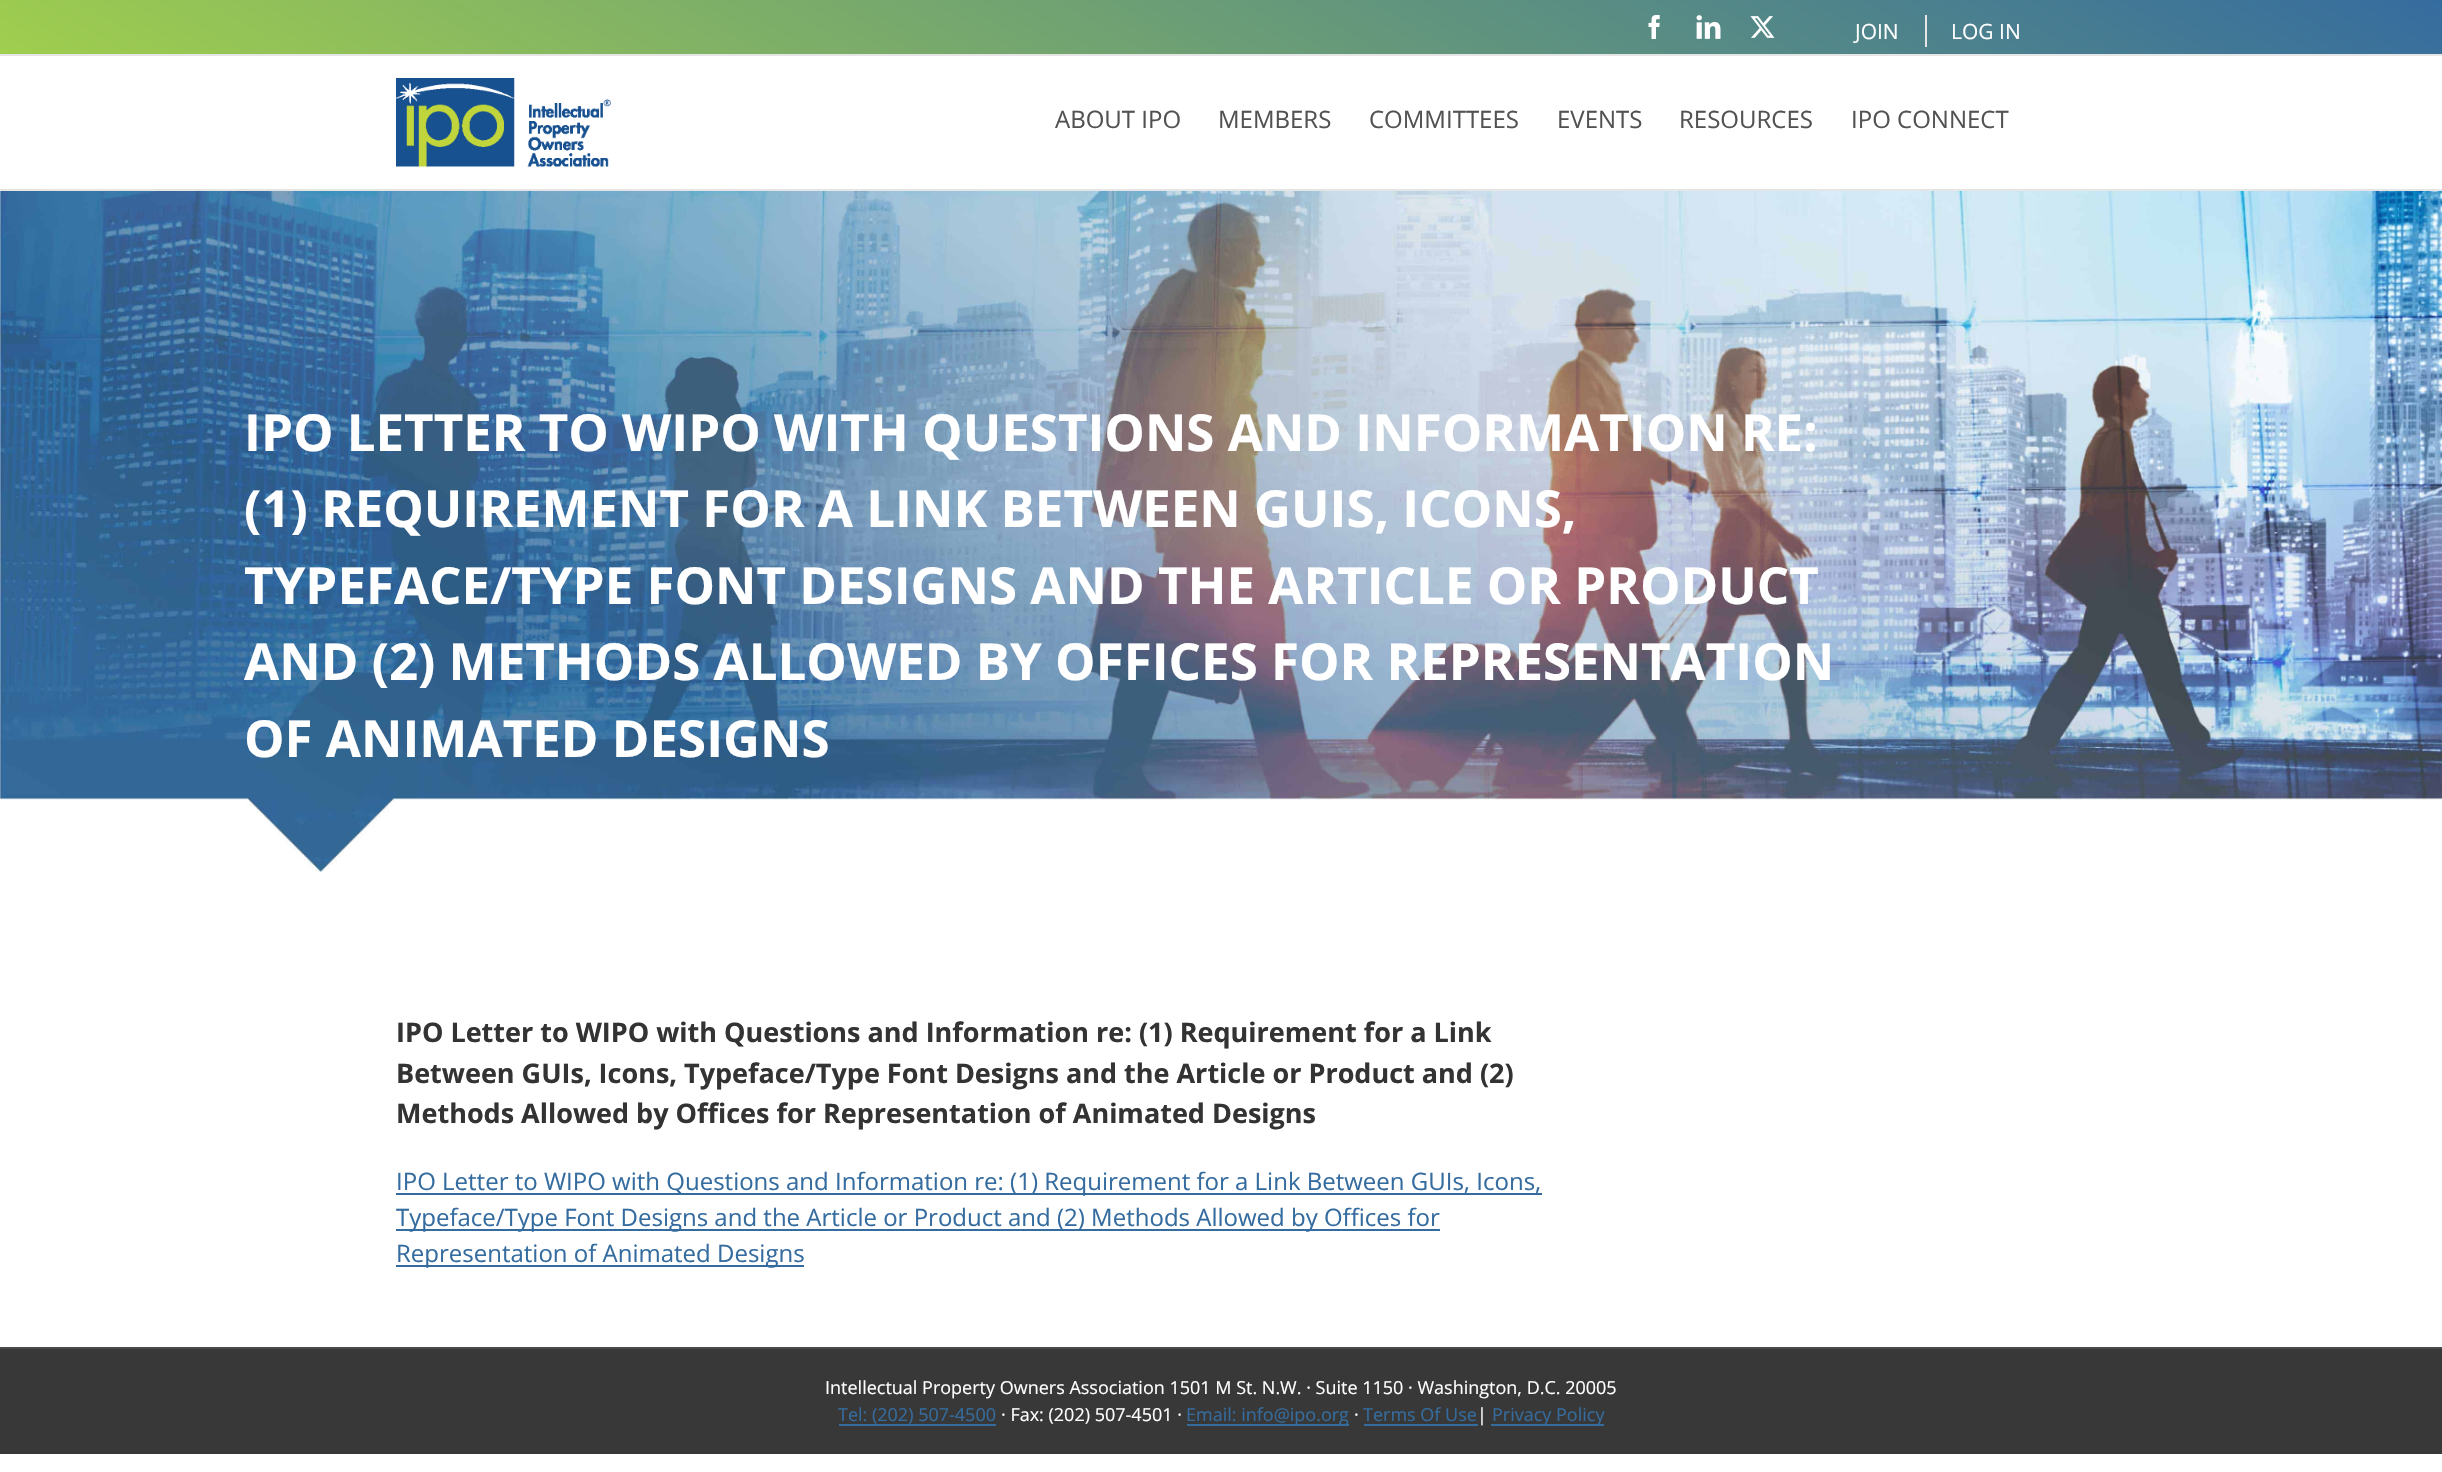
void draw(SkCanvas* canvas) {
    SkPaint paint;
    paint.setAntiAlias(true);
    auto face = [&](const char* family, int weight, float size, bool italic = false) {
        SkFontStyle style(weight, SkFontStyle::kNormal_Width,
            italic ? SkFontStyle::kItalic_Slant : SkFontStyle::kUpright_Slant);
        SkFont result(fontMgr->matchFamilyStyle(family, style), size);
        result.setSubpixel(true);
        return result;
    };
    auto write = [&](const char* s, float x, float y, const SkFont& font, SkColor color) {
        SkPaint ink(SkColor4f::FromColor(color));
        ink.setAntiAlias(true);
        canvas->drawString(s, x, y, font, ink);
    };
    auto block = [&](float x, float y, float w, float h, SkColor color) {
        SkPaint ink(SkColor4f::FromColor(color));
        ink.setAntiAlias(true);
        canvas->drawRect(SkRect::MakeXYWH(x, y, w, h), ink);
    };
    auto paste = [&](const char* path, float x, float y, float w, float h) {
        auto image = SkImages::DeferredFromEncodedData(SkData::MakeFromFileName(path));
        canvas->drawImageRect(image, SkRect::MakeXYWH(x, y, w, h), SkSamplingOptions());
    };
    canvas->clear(SK_ColorWHITE);
    {
        const SkColor colors[] = {SkColorSetRGB(160, 206, 78), SkColorSetRGB(53, 108, 159)};
        const float stops[] = {0, 1};
        const SkPoint ends[] = {{904, 576}, {1538, -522}};
        paint.setShader(SkGradientShader::MakeLinear(ends, colors, stops, 2, SkTileMode::kClamp));
        paint.setAlpha(255);
    }
    canvas->drawRect(SkRect::MakeXYWH(0, 0, 2442, 54), paint);
    block(0, 54, 2442, 2, SkColorSetRGB(229, 229, 229));
    paste("pic1.png", 1648, 15, 12, 24);
    paste("pic2.png", 1696, 15, 25, 24);
    paste("pic3.png", 1750, 16, 25, 22);
    auto kFont1 = face("Open Sans", 400, 21);
    write("JOIN", 1855, 39, kFont1, SK_ColorWHITE);
    block(1925, 15, 2, 32, SkColorSetRGB(229, 229, 229));
    write("LOG IN", 1951, 39, kFont1, SK_ColorWHITE);
    block(0, 189, 2442, 2, SkColorSetRGB(229, 229, 229));
    paste("pic4.png", 396, 78, 215, 89);
    auto kFont2 = face("Open Sans", 400, 24);
    write("ABOUT IPO", 1055, 128, kFont2, SkColorSetRGB(82, 82, 82));
    write("MEMBERS", 1218, 128, kFont2, SkColorSetRGB(82, 82, 82));
    write("COMMITTEES", 1369, 128, kFont2, SkColorSetRGB(82, 82, 82));
    write("EVENTS", 1557, 128, kFont2, SkColorSetRGB(82, 82, 82));
    write("RESOURCES", 1679, 128, kFont2, SkColorSetRGB(82, 82, 82));
    write("IPO CONNECT", 1851, 128, kFont2, SkColorSetRGB(82, 82, 82));
    paste("pic5.png", 0, 191, 2442, 681);
    auto kFont3 = face("Open Sans", 700, 51);
    write("IPO LETTER TO WIPO WITH QUESTIONS AND INFORMATION RE:", 244, 451, kFont3, SK_ColorWHITE);
    write("(1) REQUIREMENT FOR A LINK BETWEEN GUIS, ICONS,", 244, 527, kFont3, SK_ColorWHITE);
    write("TYPEFACE/TYPE FONT DESIGNS AND THE ARTICLE OR PRODUCT", 244, 604, kFont3, SK_ColorWHITE);
    write("AND (2) METHODS ALLOWED BY OFFICES FOR REPRESENTATION", 244, 680, kFont3, SK_ColorWHITE);
    write("OF ANIMATED DESIGNS", 244, 757, kFont3, SK_ColorWHITE);
    auto kFont4 = face("Open Sans", 700, 27);
    write("IPO Letter to WIPO with Questions and Information re: (1) Requirement for a Link", 396, 1042, kFont4, SkColorSetRGB(51, 51, 51));
    write("Between GUIs, Icons, Typeface/Type Font Designs and the Article or Product and (2)", 396, 1083, kFont4, SkColorSetRGB(51, 51, 51));
    write("Methods Allowed by Offices for Representation of Animated Designs", 396, 1123, kFont4, SkColorSetRGB(51, 51, 51));
    block(396, 1193, 1146, 2, SkColorSetRGB(53, 108, 159));
    write("IPO Letter to WIPO with Questions and Information re: (1) Requirement for a Link Between GUIs, Icons,", 396, 1190, kFont2, SkColorSetRGB(53, 108, 159));
    block(396, 1229, 1044, 2, SkColorSetRGB(53, 108, 159));
    write("Typeface/Type Font Designs and the Article or Product and (2) Methods Allowed by Offices for", 396, 1226, kFont2, SkColorSetRGB(53, 108, 159));
    block(396, 1265, 408, 2, SkColorSetRGB(53, 108, 159));
    write("Representation of Animated Designs", 396, 1262, kFont2, SkColorSetRGB(53, 108, 159));
    block(0, 1349, 2442, 105, SkColorSetRGB(56, 56, 56));
    block(0, 1347, 2442, 2, SkColorSetRGB(75, 76, 77));
    auto kFont5 = face("Open Sans", 400, 18);
    write("Intellectual Property Owners Association 1501 M St. N.W. · Suite 1150 · Washington, D.C. 20005", 825, 1394, kFont5, SK_ColorWHITE);
    write("Tel: (202) 507-4500", 838, 1421, kFont5, SkColorSetRGB(53, 108, 159));
    block(839, 1424, 157, 2, SkColorSetRGB(53, 108, 159));
    write("· Fax: (202) 507-4501 ·", 1001, 1421, kFont5, SK_ColorWHITE);
    block(1187, 1424, 162, 2, SkColorSetRGB(53, 108, 159));
    write("Email: info@ipo.org", 1186, 1421, kFont5, SkColorSetRGB(53, 108, 159));
    write("·", 1354, 1421, kFont5, SK_ColorWHITE);
    write("Terms Of Use", 1363, 1421, kFont5, SkColorSetRGB(53, 108, 159));
    block(1364, 1424, 114, 2, SkColorSetRGB(53, 108, 159));
    write("|", 1477, 1421, kFont5, SK_ColorWHITE);
    block(1491, 1424, 113, 2, SkColorSetRGB(53, 108, 159));
    write("Privacy Policy", 1492, 1421, kFont5, SkColorSetRGB(53, 108, 159));
}
